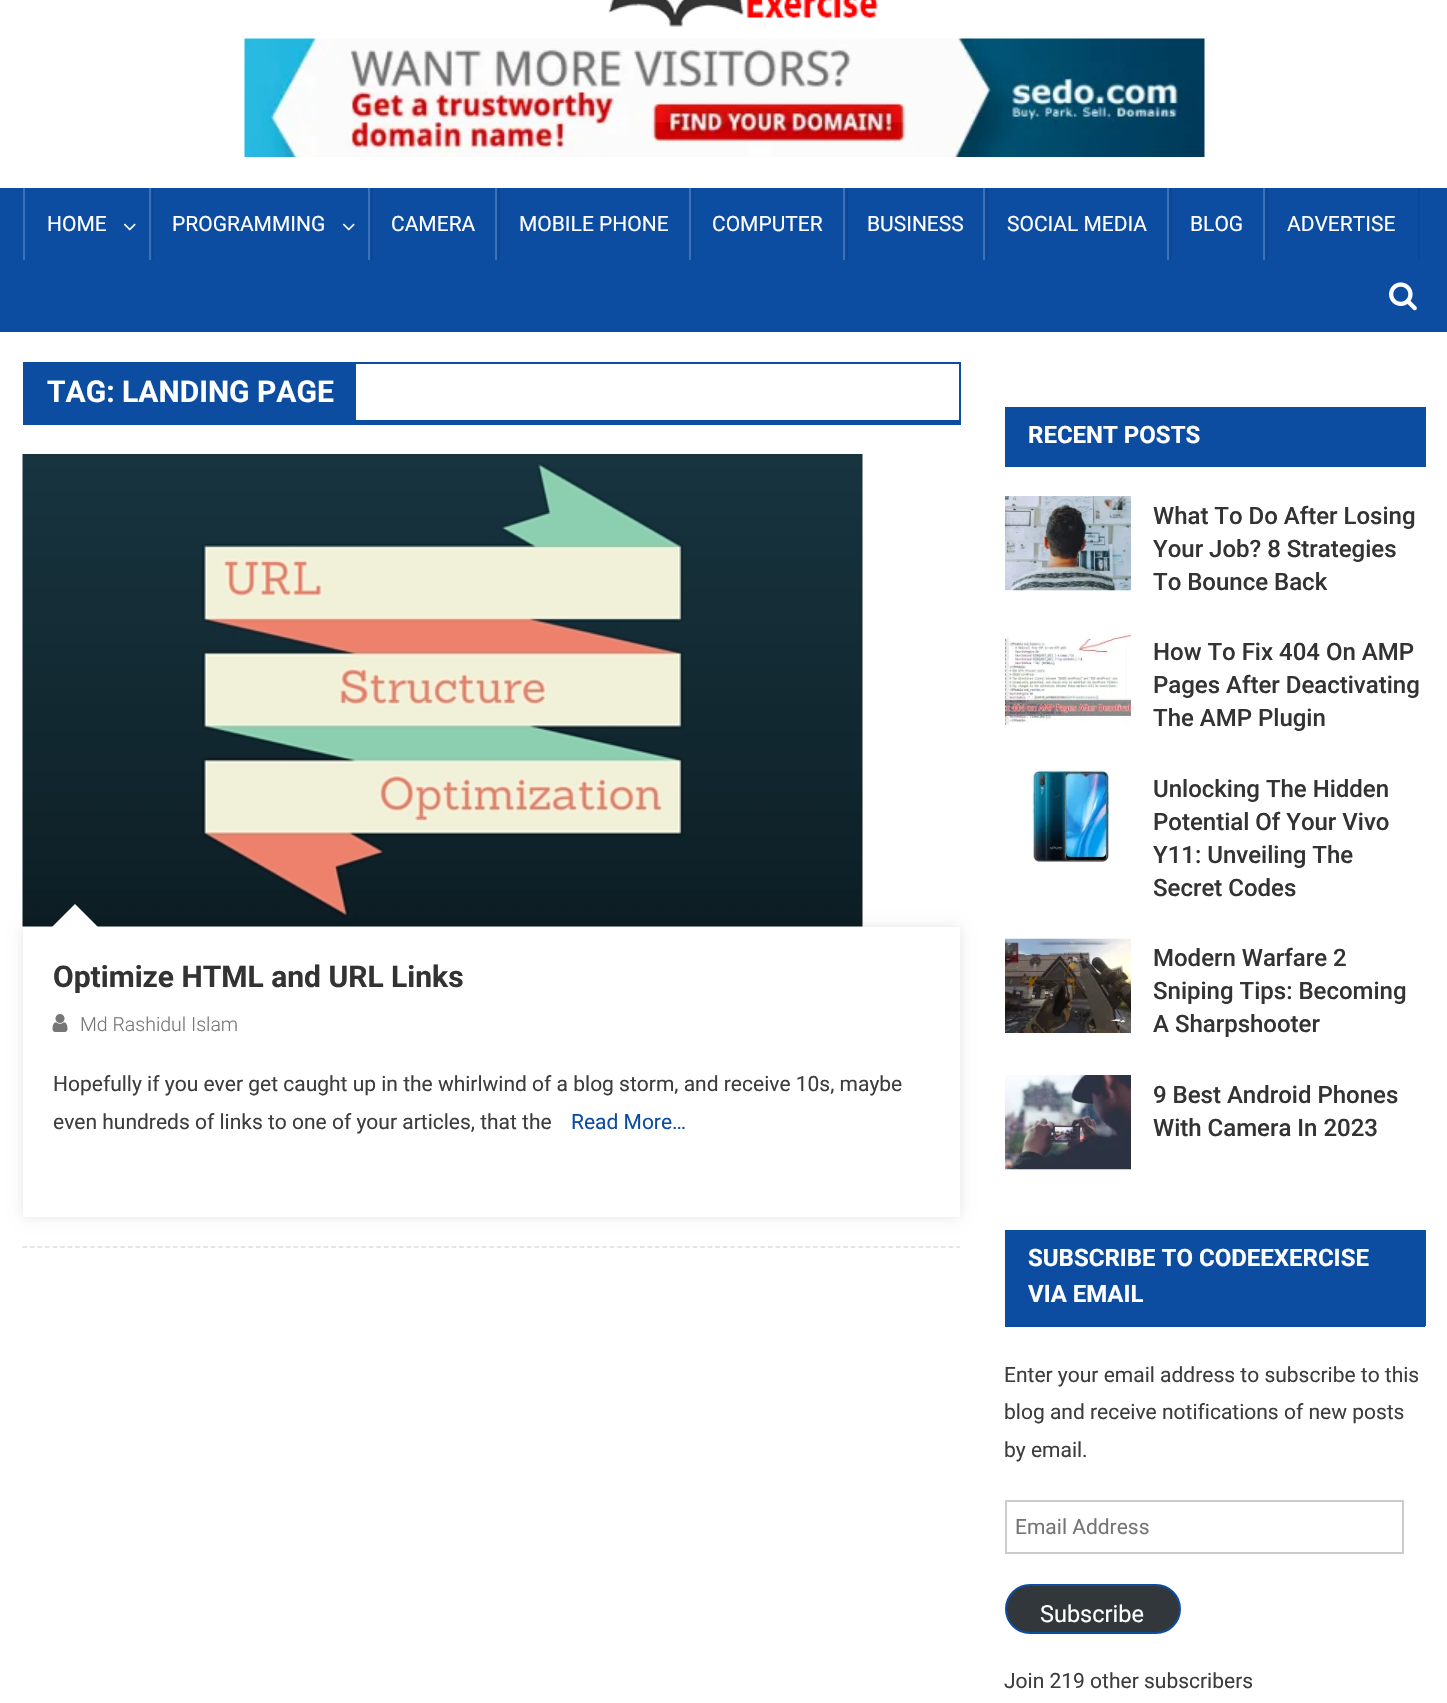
void draw(SkCanvas* canvas) {
    SkPaint paint;
    paint.setAntiAlias(true);
    auto face = [&](const char* family, int weight, float size, bool italic = false) {
        SkFontStyle style(weight, SkFontStyle::kNormal_Width,
            italic ? SkFontStyle::kItalic_Slant : SkFontStyle::kUpright_Slant);
        SkFont result(fontMgr->matchFamilyStyle(family, style), size);
        result.setSubpixel(true);
        return result;
    };
    auto write = [&](const char* s, float x, float y, const SkFont& font, SkColor color) {
        SkPaint ink(SkColor4f::FromColor(color));
        ink.setAntiAlias(true);
        canvas->drawString(s, x, y, font, ink);
    };
    auto block = [&](float x, float y, float w, float h, SkColor color) {
        SkPaint ink(SkColor4f::FromColor(color));
        ink.setAntiAlias(true);
        canvas->drawRect(SkRect::MakeXYWH(x, y, w, h), ink);
    };
    auto paste = [&](const char* path, float x, float y, float w, float h) {
        auto image = SkImages::DeferredFromEncodedData(SkData::MakeFromFileName(path));
        canvas->drawImageRect(image, SkRect::MakeXYWH(x, y, w, h), SkSamplingOptions());
    };
    canvas->clear(SK_ColorWHITE);
    paste("pic1.png", 608, 0, 270, 27);
    paste("pic2.png", 244, 38, 961, 119);
    block(0, 188, 1447, 144, SkColorSetRGB(12, 77, 162));
    block(152, 188, 2, 72, SkColorSetRGB(11, 71, 149));
    block(23, 188, 2, 72, SkColorSetRGB(61, 113, 181));
    auto kFont1 = face("Roboto", 400, 21);
    write("HOME", 47, 231, kFont1, SK_ColorWHITE);
    paste("pic3.png", 123, 223, 13, 8);
    block(371, 188, 2, 72, SkColorSetRGB(11, 71, 149));
    block(149, 188, 2, 72, SkColorSetRGB(61, 113, 181));
    write("PROGRAMMING", 172, 231, kFont1, SK_ColorWHITE);
    paste("pic3.png", 342, 223, 13, 8);
    block(498, 188, 2, 72, SkColorSetRGB(11, 71, 149));
    block(368, 188, 2, 72, SkColorSetRGB(61, 113, 181));
    write("CAMERA", 391, 231, kFont1, SK_ColorWHITE);
    block(692, 188, 2, 72, SkColorSetRGB(11, 71, 149));
    block(495, 188, 2, 72, SkColorSetRGB(61, 113, 181));
    write("MOBILE PHONE", 519, 231, kFont1, SK_ColorWHITE);
    block(846, 188, 2, 72, SkColorSetRGB(11, 71, 149));
    block(689, 188, 2, 72, SkColorSetRGB(61, 113, 181));
    write("COMPUTER", 712, 231, kFont1, SK_ColorWHITE);
    block(986, 188, 2, 72, SkColorSetRGB(11, 71, 149));
    block(843, 188, 2, 72, SkColorSetRGB(61, 113, 181));
    write("BUSINESS", 867, 231, kFont1, SK_ColorWHITE);
    block(1170, 188, 2, 72, SkColorSetRGB(11, 71, 149));
    block(983, 188, 2, 72, SkColorSetRGB(61, 113, 181));
    write("SOCIAL MEDIA", 1007, 231, kFont1, SK_ColorWHITE);
    block(1266, 188, 2, 72, SkColorSetRGB(11, 71, 149));
    block(1167, 188, 2, 72, SkColorSetRGB(61, 113, 181));
    write("BLOG", 1190, 231, kFont1, SK_ColorWHITE);
    block(1418, 188, 2, 72, SkColorSetRGB(11, 71, 149));
    block(1263, 188, 2, 72, SkColorSetRGB(61, 113, 181));
    write("ADVERTISE", 1287, 231, kFont1, SK_ColorWHITE);
    paste("pic4.png", 1389, 282, 28, 29);
    block(23, 362, 937, 2, SkColorSetRGB(12, 77, 162));
    block(959, 362, 2, 63, SkColorSetRGB(12, 77, 162));
    block(23, 420, 937, 5, SkColorSetRGB(12, 77, 162));
    block(23, 362, 2, 63, SkColorSetRGB(12, 77, 162));
    block(25, 364, 331, 56, SkColorSetRGB(12, 77, 162));
    auto kFont2 = face("Roboto", 700, 30);
    write("TAG: LANDING PAGE", 47, 402, kFont2, SK_ColorWHITE);
    paint.setStyle(SkPaint::kStroke_Style);
    paint.setStrokeWidth(1.5f);
    paint.setColor(SkColorSetRGB(221, 221, 221));
    paint.setPathEffect(SkDashPathEffect::Make({{4.5f, 3.03f}}, 0));
    canvas->drawPath(SkPathBuilder().moveTo(22.5f, 1247).lineTo(960, 1247).detach(), paint);
    paint.setPathEffect(nullptr);
    paste("pic5.png", 22, 454, 841, 473);
    canvas->save();
    canvas->clipPath(SkPathBuilder(SkPathFillType::kEvenOdd).moveTo(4, 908).lineTo(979, 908).lineTo(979, 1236).lineTo(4, 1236).close().moveTo(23, 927).lineTo(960, 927).lineTo(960, 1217).lineTo(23, 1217).close().detach(), true);
    paint.setStyle(SkPaint::kFill_Style);
    paint.setColor(SkColorSetARGB(26, 0, 0, 0));
    paint.setMaskFilter(SkMaskFilter::MakeBlur(kNormal_SkBlurStyle, 6));
    canvas->drawRect(SkRect::MakeXYWH(23, 927, 937, 290), paint);
    paint.setMaskFilter(nullptr);
    canvas->restore();
    paint.setColor(SK_ColorWHITE);
    canvas->drawPath(SkPathBuilder().moveTo(98, 927).lineTo(52, 927).lineTo(75, 904).close().detach(), paint);
    write("Optimize HTML and URL Links", 53, 987, kFont2, SkColorSetRGB(51, 51, 51));
    paste("pic6.png", 52, 1014, 16, 18);
    auto kFont3 = face("Roboto", 300, 19.5f);
    write("Md Rashidul Islam", 80, 1031, kFont3, SkColorSetRGB(117, 117, 117));
    write("Hopefully if you ever get caught up in the whirlwind of a blog storm, and receive 10s, maybe", 53, 1091, kFont1, SkColorSetRGB(61, 61, 61));
    write("even hundreds of links to one of your articles, that the", 53, 1129, kFont1, SkColorSetRGB(61, 61, 61));
    write("Read More…", 571, 1129, kFont1, SkColorSetRGB(12, 77, 162));
    block(1005, 407, 420, 1, SkColorSetRGB(12, 77, 162));
    block(1424, 407, 2, 60, SkColorSetRGB(12, 77, 162));
    block(1005, 462, 420, 5, SkColorSetRGB(12, 77, 162));
    block(1005, 407, 2, 60, SkColorSetRGB(12, 77, 162));
    block(1007, 408, 417, 54, SkColorSetRGB(12, 77, 162));
    auto kFont4 = face("Roboto", 700, 24);
    write("RECENT POSTS", 1028, 443, kFont4, SK_ColorWHITE);
    paste("pic7.png", 1005, 496, 126, 95);
    auto kFont5 = face("Roboto", 500, 24);
    write("What To Do After Losing", 1153, 524, kFont5, SkColorSetRGB(51, 51, 51));
    write("Your Job? 8 Strategies", 1153, 557, kFont5, SkColorSetRGB(51, 51, 51));
    write("To Bounce Back", 1153, 590, kFont5, SkColorSetRGB(51, 51, 51));
    paste("pic8.png", 1005, 633, 126, 93);
    write("How To Fix 404 On AMP", 1153, 660, kFont5, SkColorSetRGB(51, 51, 51));
    write("Pages After Deactivating", 1153, 693, kFont5, SkColorSetRGB(51, 51, 51));
    write("The AMP Plugin", 1153, 726, kFont5, SkColorSetRGB(51, 51, 51));
    paste("pic9.png", 1031, 769, 79, 94);
    write("Unlocking The Hidden", 1153, 797, kFont5, SkColorSetRGB(51, 51, 51));
    write("Potential Of Your Vivo", 1153, 830, kFont5, SkColorSetRGB(51, 51, 51));
    write("Y11: Unveiling The", 1153, 863, kFont5, SkColorSetRGB(51, 51, 51));
    write("Secret Codes", 1153, 896, kFont5, SkColorSetRGB(51, 51, 51));
    paste("pic10.png", 1005, 938, 126, 95);
    write("Modern Warfare 2", 1153, 966, kFont5, SkColorSetRGB(51, 51, 51));
    write("Sniping Tips: Becoming", 1153, 999, kFont5, SkColorSetRGB(51, 51, 51));
    write("A Sharpshooter", 1153, 1032, kFont5, SkColorSetRGB(51, 51, 51));
    paste("pic11.png", 1005, 1075, 126, 95);
    write("9 Best Android Phones", 1153, 1103, kFont5, SkColorSetRGB(51, 51, 51));
    write("With Camera In 2023", 1153, 1136, kFont5, SkColorSetRGB(51, 51, 51));
    block(1005, 1230, 420, 2, SkColorSetRGB(12, 77, 162));
    block(1424, 1230, 2, 96, SkColorSetRGB(12, 77, 162));
    block(1005, 1322, 420, 5, SkColorSetRGB(12, 77, 162));
    block(1005, 1230, 2, 96, SkColorSetRGB(12, 77, 162));
    block(1007, 1232, 417, 90, SkColorSetRGB(12, 77, 162));
    write("SUBSCRIBE TO CODEEXERCISE", 1028, 1266, kFont4, SK_ColorWHITE);
    write("VIA EMAIL", 1028, 1302, kFont4, SK_ColorWHITE);
    write("Enter your email address to subscribe to this", 1004, 1382, kFont1, SkColorSetRGB(61, 61, 61));
    write("blog and receive notifications of new posts", 1004, 1419, kFont1, SkColorSetRGB(61, 61, 61));
    write("by email.", 1004, 1457, kFont1, SkColorSetRGB(61, 61, 61));
    paint.setStyle(SkPaint::kStroke_Style);
    paint.setStrokeWidth(2);
    paint.setColor(SkColorSetRGB(204, 204, 204));
    canvas->drawRect(SkRect::MakeXYWH(1006, 1501, 397, 52), paint);
    write("Email Address", 1015, 1534, kFont1, SkColorSetRGB(117, 117, 117));
    paint.setStyle(SkPaint::kFill_Style);
    paint.setColor(SkColorSetRGB(50, 55, 60));
    canvas->drawRoundRect(SkRect::MakeXYWH(1006, 1585, 174, 48), 24, 24, paint);
    paint.setStyle(SkPaint::kStroke_Style);
    paint.setColor(SkColorSetRGB(12, 77, 162));
    canvas->drawRoundRect(SkRect::MakeXYWH(1006, 1585, 174, 48), 24, 24, paint);
    auto kFont6 = face("Roboto", 400, 23.5f);
    write("Subscribe", 1040, 1622, kFont6, SK_ColorWHITE);
    write("Join 219 other subscribers", 1004, 1688, kFont1, SkColorSetRGB(61, 61, 61));
}
